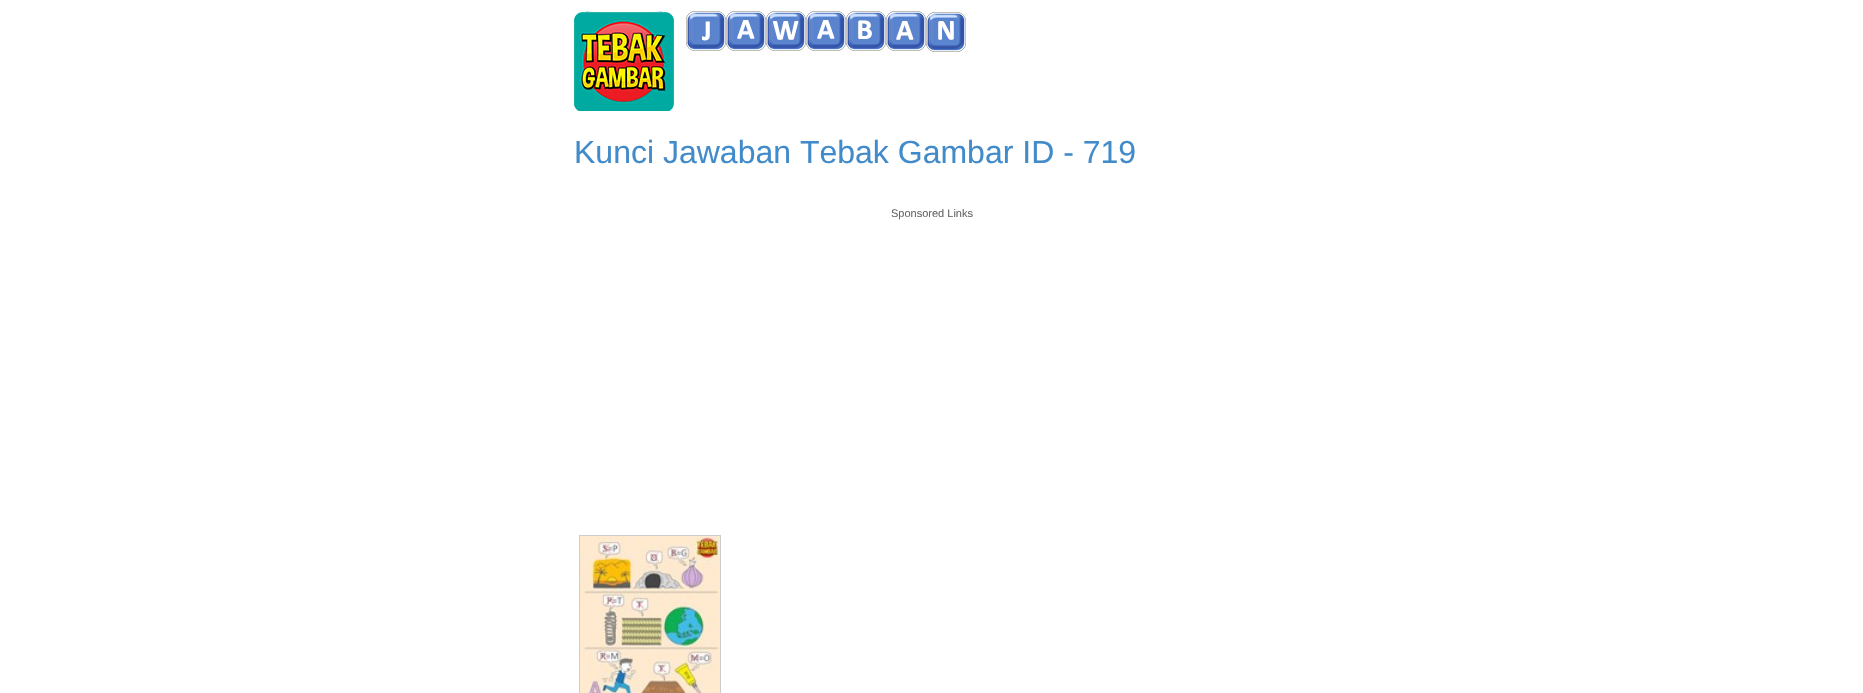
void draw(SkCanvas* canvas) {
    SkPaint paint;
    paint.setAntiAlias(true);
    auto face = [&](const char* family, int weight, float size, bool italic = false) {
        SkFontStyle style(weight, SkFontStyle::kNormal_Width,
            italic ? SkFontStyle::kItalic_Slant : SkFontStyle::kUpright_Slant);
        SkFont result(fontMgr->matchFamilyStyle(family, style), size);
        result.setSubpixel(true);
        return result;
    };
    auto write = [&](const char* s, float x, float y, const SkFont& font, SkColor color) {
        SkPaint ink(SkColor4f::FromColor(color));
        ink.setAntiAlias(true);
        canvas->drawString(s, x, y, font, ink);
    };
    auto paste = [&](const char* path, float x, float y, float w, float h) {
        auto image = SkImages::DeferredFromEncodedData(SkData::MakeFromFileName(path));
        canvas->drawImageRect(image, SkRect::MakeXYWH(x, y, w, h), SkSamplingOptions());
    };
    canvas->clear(SK_ColorWHITE);
    paste("pic1.png", 574, 11, 392, 100);
    auto kFont1 = face("Liberation Sans", 400, 32);
    write("Kunci Jawaban Tebak Gambar ID - 719", 574, 163, kFont1, SkColorSetRGB(66, 139, 202));
    auto kFont2 = face("Liberation Sans", 400, 11);
    write("Sponsored Links", 891, 217, kFont2, SkColorSetRGB(102, 102, 102));
    paint.setStyle(SkPaint::kStroke_Style);
    paint.setStrokeWidth(1);
    paint.setColor(SkColorSetRGB(204, 204, 204));
    canvas->drawRect(SkRect::MakeXYWH(579.5f, 535.5f, 141, 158), paint);
    paste("pic2.png", 580, 536, 140, 157);
}
